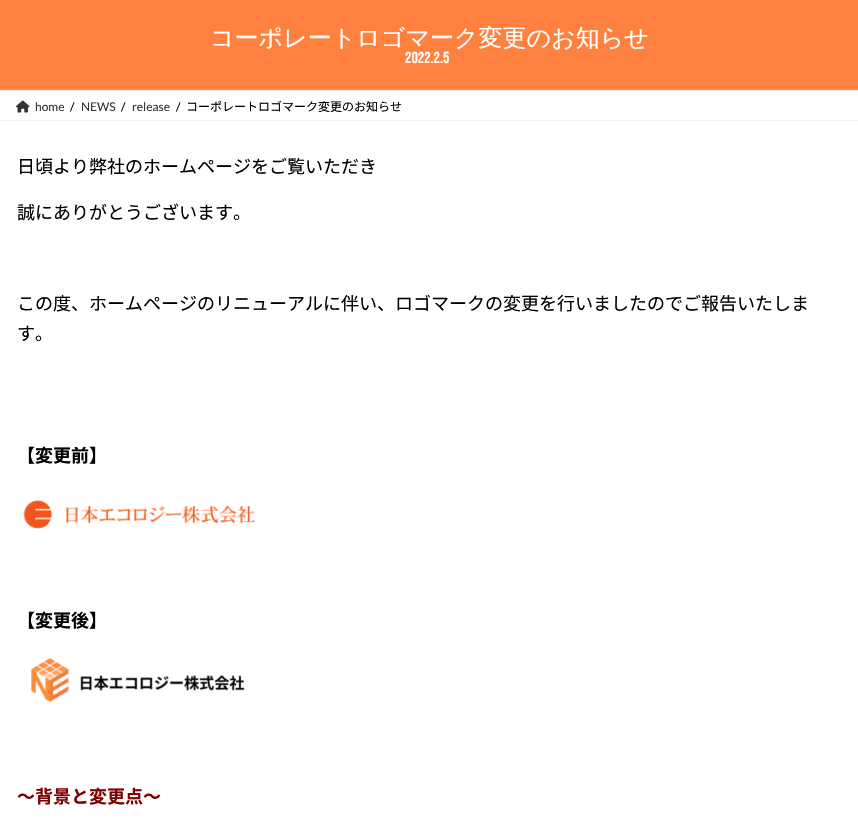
void draw(SkCanvas* canvas) {
    SkPaint paint;
    paint.setAntiAlias(true);
    auto face = [&](const char* family, int weight, float size, bool italic = false) {
        SkFontStyle style(weight, SkFontStyle::kNormal_Width,
            italic ? SkFontStyle::kItalic_Slant : SkFontStyle::kUpright_Slant);
        SkFont result(fontMgr->matchFamilyStyle(family, style), size);
        result.setSubpixel(true);
        return result;
    };
    auto write = [&](const char* s, float x, float y, const SkFont& font, SkColor color) {
        SkPaint ink(SkColor4f::FromColor(color));
        ink.setAntiAlias(true);
        canvas->drawString(s, x, y, font, ink);
    };
    auto block = [&](float x, float y, float w, float h, SkColor color) {
        SkPaint ink(SkColor4f::FromColor(color));
        ink.setAntiAlias(true);
        canvas->drawRect(SkRect::MakeXYWH(x, y, w, h), ink);
    };
    auto paste = [&](const char* path, float x, float y, float w, float h) {
        auto image = SkImages::DeferredFromEncodedData(SkData::MakeFromFileName(path));
        canvas->drawImageRect(image, SkRect::MakeXYWH(x, y, w, h), SkSamplingOptions());
    };
    canvas->clear(SK_ColorWHITE);
    block(0, 0, 858, 90, SkColorSetRGB(255, 129, 64));
    auto kFont1 = face("WenQuanYi Zen Hei", 500, 24);
    write("コーポレートロゴマーク変更のお知らせ", 210, 46, kFont1, SK_ColorWHITE);
    auto kFont2 = face("Bebas Neue", 400, 16);
    write("2022.2.5", 405, 63, kFont2, SK_ColorWHITE);
    block(0, 90, 858, 1, SkColorSetRGB(240, 240, 240));
    block(0, 120, 858, 1, SkColorSetRGB(240, 240, 240));
    paste("pic1.png", 16, 100, 14, 13);
    auto kFont3 = face("Lato", 400, 12);
    write("home", 35, 111, kFont3, SkColorSetRGB(51, 51, 51));
    write("/", 70, 111, kFont3, SK_ColorBLACK);
    write("NEWS", 81, 111, kFont3, SkColorSetRGB(51, 51, 51));
    write("/", 121, 111, kFont3, SK_ColorBLACK);
    write("release", 132, 111, kFont3, SkColorSetRGB(51, 51, 51));
    write("/", 176, 111, kFont3, SK_ColorBLACK);
    auto kFont4 = face("Noto Sans JP", 400, 12);
    write("コーポレートロゴマーク変更のお知らせ", 186, 111, kFont4, SK_ColorBLACK);
    auto kFont5 = face("Noto Sans JP", 400, 18);
    write("日頃より弊社のホームページをご覧いただき", 17, 173, kFont5, SK_ColorBLACK);
    write("誠にありがとうございます。", 17, 219, kFont5, SK_ColorBLACK);
    write("この度、ホームページのリニューアルに伴い、ロゴマークの変更を行いましたのでご報告いたしま", 17, 310, kFont5, SK_ColorBLACK);
    write("す。", 17, 340, kFont5, SK_ColorBLACK);
    auto kFont6 = face("Noto Sans JP", 700, 18);
    write("【変更前】", 17, 462, kFont6, SK_ColorBLACK);
    paste("pic2.png", 23, 500, 232, 29);
    write("【変更後】", 17, 627, kFont6, SK_ColorBLACK);
    paste("pic3.png", 31, 658, 214, 45);
    write("〜背景と変更点〜", 17, 803, kFont6, SkColorSetRGB(128, 0, 0));
}
